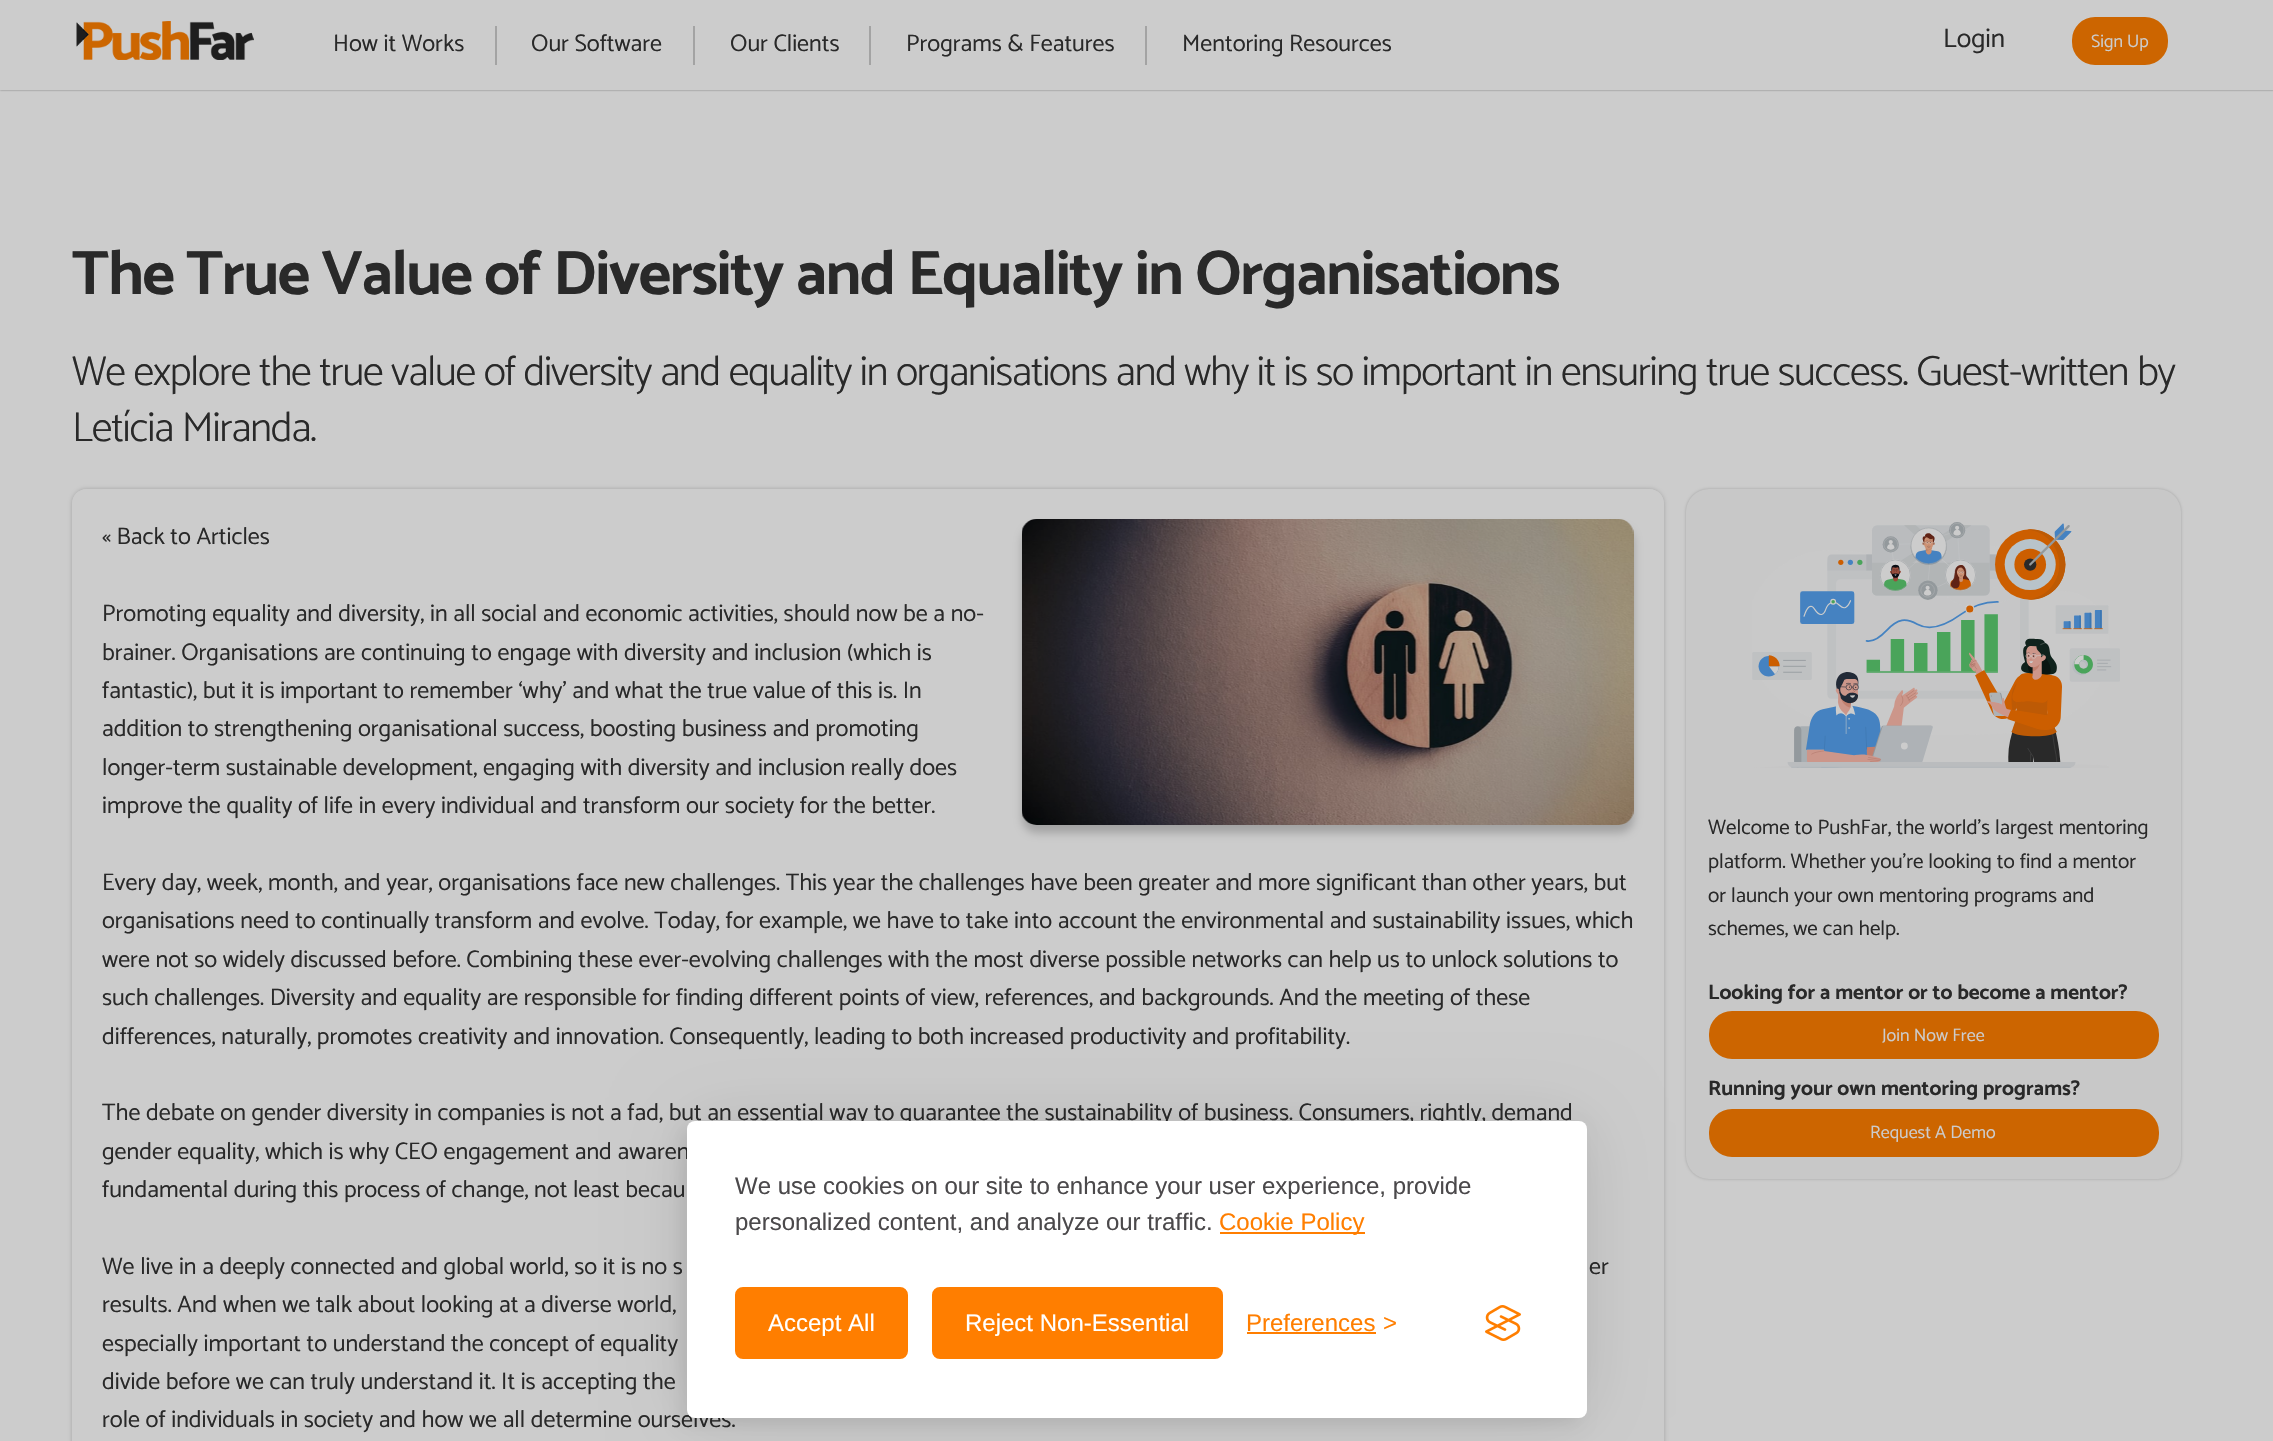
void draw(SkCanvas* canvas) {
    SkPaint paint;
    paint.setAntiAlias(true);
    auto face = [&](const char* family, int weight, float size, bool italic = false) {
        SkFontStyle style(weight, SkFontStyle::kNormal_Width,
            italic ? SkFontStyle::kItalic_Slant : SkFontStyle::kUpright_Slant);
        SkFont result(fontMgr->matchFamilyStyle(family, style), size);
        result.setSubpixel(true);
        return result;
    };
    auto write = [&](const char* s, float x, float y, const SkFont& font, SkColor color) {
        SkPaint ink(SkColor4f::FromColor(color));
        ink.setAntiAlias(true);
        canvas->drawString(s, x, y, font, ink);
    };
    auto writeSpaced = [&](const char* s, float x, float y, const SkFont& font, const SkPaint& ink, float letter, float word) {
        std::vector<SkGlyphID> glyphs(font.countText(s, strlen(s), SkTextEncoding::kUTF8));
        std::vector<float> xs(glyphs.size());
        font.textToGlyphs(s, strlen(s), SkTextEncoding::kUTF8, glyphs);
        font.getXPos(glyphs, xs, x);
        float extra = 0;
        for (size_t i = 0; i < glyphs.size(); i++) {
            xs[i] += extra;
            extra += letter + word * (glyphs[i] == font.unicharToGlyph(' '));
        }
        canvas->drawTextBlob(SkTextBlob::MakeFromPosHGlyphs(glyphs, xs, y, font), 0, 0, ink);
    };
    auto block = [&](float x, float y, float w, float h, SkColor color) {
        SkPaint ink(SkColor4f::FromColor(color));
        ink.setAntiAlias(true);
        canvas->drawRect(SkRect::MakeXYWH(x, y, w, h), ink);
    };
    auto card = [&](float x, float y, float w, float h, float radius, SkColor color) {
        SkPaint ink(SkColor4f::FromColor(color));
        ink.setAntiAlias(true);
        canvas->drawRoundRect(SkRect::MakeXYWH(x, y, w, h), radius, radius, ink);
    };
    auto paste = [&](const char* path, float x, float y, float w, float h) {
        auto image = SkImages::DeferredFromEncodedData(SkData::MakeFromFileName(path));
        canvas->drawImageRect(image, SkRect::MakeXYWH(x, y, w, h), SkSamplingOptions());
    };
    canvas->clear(SkColorSetRGB(204, 204, 204));
    canvas->save();
    canvas->clipRect(SkRect::MakeXYWH(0, 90, 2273, 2));
    paint.setColor(SkColorSetRGB(122, 122, 122));
    paint.setMaskFilter(SkMaskFilter::MakeBlur(kNormal_SkBlurStyle, 1));
    canvas->drawRect(SkRect::MakeXYWH(0, 0, 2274, 90), paint);
    paint.setMaskFilter(nullptr);
    canvas->restore();
    paste("pic1.png", 76, 21, 178, 39);
    block(495, 26, 2, 39, SkColorSetRGB(163, 163, 163));
    auto kFont1 = face("Catamaran", 400, 24);
    write("How it Works", 333, 51, kFont1, SkColorSetRGB(41, 41, 41));
    block(693, 26, 2, 39, SkColorSetRGB(163, 163, 163));
    write("Our Software", 531, 51, kFont1, SkColorSetRGB(41, 41, 41));
    block(869, 26, 2, 39, SkColorSetRGB(163, 163, 163));
    write("Our Clients", 730, 51, kFont1, SkColorSetRGB(41, 41, 41));
    block(1145, 26, 2, 39, SkColorSetRGB(163, 163, 163));
    write("Programs & Features", 906, 51, kFont1, SkColorSetRGB(41, 41, 41));
    write("Mentoring Resources", 1182, 51, kFont1, SkColorSetRGB(41, 41, 41));
    auto kFont2 = face("Catamaran", 400, 27);
    write("Login", 1943, 47, kFont2, SkColorSetRGB(41, 41, 41));
    paint.setColor(SkColorSetRGB(204, 101, 0));
    canvas->drawRoundRect(SkRect::MakeXYWH(2073, 18, 94, 46), 22, 22, paint);
    paint.setStyle(SkPaint::kStroke_Style);
    paint.setStrokeWidth(2);
    canvas->drawRoundRect(SkRect::MakeXYWH(2073, 18, 94, 46), 22, 22, paint);
    auto kFont3 = face("Catamaran", 400, 18);
    write("Sign Up", 2091, 47, kFont3, SkColorSetRGB(204, 204, 204));
    auto kFont4 = face("Catamaran", 700, 63);
    paint.setStyle(SkPaint::kFill_Style);
    paint.setColor(SkColorSetRGB(41, 41, 41));
    writeSpaced("The True Value of Diversity and Equality in Organisations", 72, 294, kFont4, paint, -1.5f, 0);
    auto kFont5 = face("Catamaran", 300, 42);
    writeSpaced("We explore the true value of diversity and equality in organisations and why it is so important in ensuring true success. Guest-written by", 72, 385, kFont5, paint, -1.2f, 0);
    writeSpaced("Letícia Miranda.", 72, 441, kFont5, paint, -1.2f, 0);
    canvas->save();
    canvas->clipPath(SkPathBuilder(SkPathFillType::kEvenOdd).moveTo(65, 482).lineTo(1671, 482).lineTo(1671, 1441).lineTo(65, 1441).close().moveTo(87, 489).lineTo(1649, 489).cubicTo(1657.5f, 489, 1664, 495.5f, 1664, 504).lineTo(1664, 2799).cubicTo(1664, 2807.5f, 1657.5f, 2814, 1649, 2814).lineTo(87, 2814).cubicTo(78.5f, 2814, 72, 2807.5f, 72, 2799).lineTo(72, 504).cubicTo(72, 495.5f, 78.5f, 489, 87, 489).close().detach(), true);
    paint.setColor(SkColorSetRGB(163, 163, 163));
    paint.setMaskFilter(SkMaskFilter::MakeBlur(kNormal_SkBlurStyle, 2));
    canvas->drawRoundRect(SkRect::MakeXYWH(72, 489, 1592, 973), 15, 15, paint);
    paint.setMaskFilter(nullptr);
    canvas->restore();
    paint.setColor(SkColorSetARGB(230, 204, 204, 204));
    canvas->drawPath(SkPathBuilder().moveTo(87, 489).lineTo(1649, 489).cubicTo(1657.5f, 489, 1664, 495.5f, 1664, 504).lineTo(1664, 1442).lineTo(72, 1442).lineTo(72, 504).cubicTo(72, 495.5f, 78.5f, 489, 87, 489).close().detach(), paint);
    write("« Back to Articles", 102, 544, kFont1, SkColorSetRGB(41, 41, 41));
    paint.setColor(SkColorSetRGB(163, 163, 163));
    paint.setMaskFilter(SkMaskFilter::MakeBlur(kNormal_SkBlurStyle, 4));
    canvas->drawRoundRect(SkRect::MakeXYWH(1022, 527, 612, 306), 15, 15, paint);
    paint.setMaskFilter(nullptr);
    paste("pic2.png", 1022, 519, 612, 306);
    write("Promoting equality and diversity, in all social and economic activities, should now be a no-", 102, 621, kFont1, SkColorSetRGB(41, 41, 41));
    write("brainer. Organisations are continuing to engage with diversity and inclusion (which is", 102, 660, kFont1, SkColorSetRGB(41, 41, 41));
    write("fantastic), but it is important to remember ‘why’ and what the true value of this is. In", 102, 698, kFont1, SkColorSetRGB(41, 41, 41));
    write("addition to strengthening organisational success, boosting business and promoting", 102, 736, kFont1, SkColorSetRGB(41, 41, 41));
    write("longer-term sustainable development, engaging with diversity and inclusion really does", 102, 775, kFont1, SkColorSetRGB(41, 41, 41));
    write("improve the quality of life in every individual and transform our society for the better.", 102, 813, kFont1, SkColorSetRGB(41, 41, 41));
    write("Every day, week, month, and year, organisations face new challenges. This year the challenges have been greater and more significant than other years, but", 102, 890, kFont1, SkColorSetRGB(41, 41, 41));
    write("organisations need to continually transform and evolve. Today, for example, we have to take into account the environmental and sustainability issues, which", 102, 928, kFont1, SkColorSetRGB(41, 41, 41));
    write("were not so widely discussed before. Combining these ever-evolving challenges with the most diverse possible networks can help us to unlock solutions to", 102, 967, kFont1, SkColorSetRGB(41, 41, 41));
    write("such challenges. Diversity and equality are responsible for finding different points of view, references, and backgrounds. And the meeting of these", 102, 1005, kFont1, SkColorSetRGB(41, 41, 41));
    write("differences, naturally, promotes creativity and innovation. Consequently, leading to both increased productivity and profitability.", 102, 1044, kFont1, SkColorSetRGB(41, 41, 41));
    write("The debate on gender diversity in companies is not a fad, but an essential way to guarantee the sustainability of business. Consumers, rightly, demand", 102, 1120, kFont1, SkColorSetRGB(41, 41, 41));
    write("gender equality, which is why CEO engagement and awaren", 102, 1159, kFont1, SkColorSetRGB(41, 41, 41));
    write("fundamental during this process of change, not least becau", 102, 1197, kFont1, SkColorSetRGB(41, 41, 41));
    write("We live in a deeply connected and global world, so it is no s", 102, 1274, kFont1, SkColorSetRGB(41, 41, 41));
    write("er", 1589, 1274, kFont1, SkColorSetRGB(41, 41, 41));
    write("results. And when we talk about looking at a diverse world,", 102, 1312, kFont1, SkColorSetRGB(41, 41, 41));
    write("especially important to understand the concept of equality", 102, 1351, kFont1, SkColorSetRGB(41, 41, 41));
    write("divide before we can truly understand it. It is accepting the", 102, 1389, kFont1, SkColorSetRGB(41, 41, 41));
    write("role of individuals in society and how we all determine ourselves.", 102, 1427, kFont1, SkColorSetRGB(41, 41, 41));
    paint.setMaskFilter(SkMaskFilter::MakeBlur(kNormal_SkBlurStyle, 1.5f));
    canvas->drawRoundRect(SkRect::MakeXYWH(1686, 489, 495, 690), 23, 23, paint);
    paint.setMaskFilter(nullptr);
    card(1686, 489, 495, 690, 23, SkColorSetRGB(200, 200, 200));
    paste("pic3.png", 1752, 522, 368, 246);
    auto kFont6 = face("Catamaran", 400, 21);
    write("Welcome to PushFar, the world's largest mentoring", 1708, 834, kFont6, SkColorSetRGB(41, 41, 41));
    write("platform. Whether you're looking to find a mentor", 1708, 868, kFont6, SkColorSetRGB(41, 41, 41));
    write("or launch your own mentoring programs and", 1708, 902, kFont6, SkColorSetRGB(41, 41, 41));
    write("schemes, we can help.", 1708, 935, kFont6, SkColorSetRGB(41, 41, 41));
    auto kFont7 = face("Catamaran", 700, 21);
    write("Looking for a mentor or to become a mentor?", 1708, 999, kFont7, SkColorSetRGB(41, 41, 41));
    paint.setColor(SkColorSetRGB(204, 101, 0));
    canvas->drawRoundRect(SkRect::MakeXYWH(1710, 1012, 448, 46), 22, 22, paint);
    paint.setStyle(SkPaint::kStroke_Style);
    canvas->drawRoundRect(SkRect::MakeXYWH(1710, 1012, 448, 46), 22, 22, paint);
    write("Join Now Free", 1882, 1041, kFont3, SkColorSetRGB(204, 204, 204));
    write("Running your own mentoring programs?", 1708, 1095, kFont7, SkColorSetRGB(41, 41, 41));
    paint.setStyle(SkPaint::kFill_Style);
    canvas->drawRoundRect(SkRect::MakeXYWH(1710, 1110, 448, 46), 22, 22, paint);
    paint.setStyle(SkPaint::kStroke_Style);
    canvas->drawRoundRect(SkRect::MakeXYWH(1710, 1110, 448, 46), 22, 22, paint);
    write("Request A Demo", 1870, 1138, kFont3, SkColorSetRGB(204, 204, 204));
    paint.setStyle(SkPaint::kFill_Style);
    paint.setColor(SkColorSetARGB(26, 0, 0, 0));
    paint.setMaskFilter(SkMaskFilter::MakeBlur(kNormal_SkBlurStyle, 37.5f));
    canvas->drawRoundRect(SkRect::MakeXYWH(687, 1121, 900, 297), 8, 8, paint);
    paint.setMaskFilter(nullptr);
    paint.setColor(SkColorSetARGB(18, 0, 0, 0));
    paint.setMaskFilter(SkMaskFilter::MakeBlur(kNormal_SkBlurStyle, 7.5f));
    canvas->drawRoundRect(SkRect::MakeXYWH(680, 1128, 900, 297), 8, 8, paint);
    paint.setMaskFilter(nullptr);
    card(687, 1121, 900, 297, 8, SK_ColorWHITE);
    auto kFont8 = face("Liberation Sans", 400, 24);
    write("We use cookies on our site to enhance your user experience, provide", 735, 1194, kFont8, SkColorSetRGB(75, 73, 75));
    write("personalized content, and analyze our traffic.", 735, 1230, kFont8, SkColorSetRGB(75, 73, 75));
    block(1220, 1232, 145, 2, SkColorSetRGB(255, 126, 0));
    write("Cookie Policy", 1219, 1230, kFont8, SkColorSetRGB(255, 126, 0));
    paint.setColor(SkColorSetRGB(255, 126, 0));
    canvas->drawRoundRect(SkRect::MakeXYWH(736.5f, 1288.5f, 170, 69), 6.5f, 6.5f, paint);
    paint.setStyle(SkPaint::kStroke_Style);
    paint.setStrokeWidth(3);
    canvas->drawRoundRect(SkRect::MakeXYWH(736.5f, 1288.5f, 170, 69), 6.5f, 6.5f, paint);
    write("Accept All", 768, 1331, kFont8, SK_ColorWHITE);
    paint.setStyle(SkPaint::kFill_Style);
    canvas->drawRoundRect(SkRect::MakeXYWH(933.5f, 1288.5f, 288, 69), 6.5f, 6.5f, paint);
    paint.setStyle(SkPaint::kStroke_Style);
    canvas->drawRoundRect(SkRect::MakeXYWH(933.5f, 1288.5f, 288, 69), 6.5f, 6.5f, paint);
    write("Reject Non-Essential", 965, 1331, kFont8, SK_ColorWHITE);
    write("Preferences", 1246, 1331, kFont8, SkColorSetRGB(255, 126, 0));
    block(1247, 1332, 129, 2, SkColorSetRGB(255, 126, 0));
    write(">", 1383, 1331, kFont8, SkColorSetRGB(255, 126, 0));
    paste("pic4.png", 1485, 1305, 36, 36);
}
